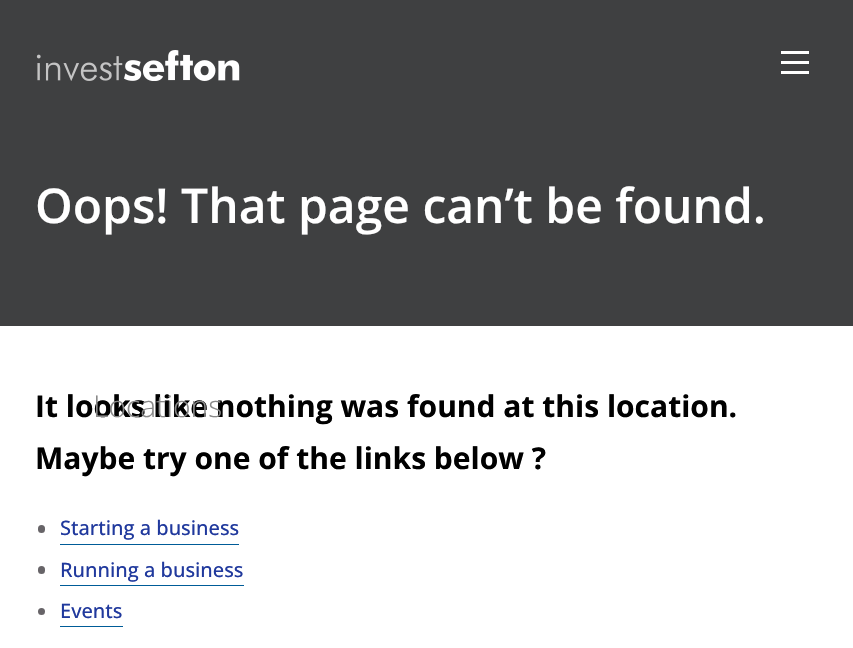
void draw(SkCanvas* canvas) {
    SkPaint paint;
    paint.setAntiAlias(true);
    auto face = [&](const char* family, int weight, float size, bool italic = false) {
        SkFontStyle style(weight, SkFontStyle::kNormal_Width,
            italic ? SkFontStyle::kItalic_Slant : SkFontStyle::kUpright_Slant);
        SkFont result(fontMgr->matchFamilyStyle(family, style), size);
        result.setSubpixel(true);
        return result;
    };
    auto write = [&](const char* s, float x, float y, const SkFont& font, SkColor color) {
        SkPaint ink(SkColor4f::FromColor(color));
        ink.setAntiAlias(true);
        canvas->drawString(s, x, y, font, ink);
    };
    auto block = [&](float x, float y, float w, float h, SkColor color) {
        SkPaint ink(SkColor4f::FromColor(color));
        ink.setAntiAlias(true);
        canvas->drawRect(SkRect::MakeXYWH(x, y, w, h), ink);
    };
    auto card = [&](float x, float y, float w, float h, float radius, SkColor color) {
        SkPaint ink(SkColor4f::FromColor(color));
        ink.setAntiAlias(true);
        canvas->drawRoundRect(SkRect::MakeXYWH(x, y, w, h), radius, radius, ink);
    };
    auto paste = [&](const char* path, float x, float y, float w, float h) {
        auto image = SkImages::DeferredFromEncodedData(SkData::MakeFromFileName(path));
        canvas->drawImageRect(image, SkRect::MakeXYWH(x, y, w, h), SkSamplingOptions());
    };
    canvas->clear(SK_ColorWHITE);
    block(0, 0, 853, 326, SkColorSetRGB(63, 64, 65));
    auto kFont1 = face("Open Sans", 600, 48);
    write("Oops! That page can’t be found.", 35, 223, kFont1, SK_ColorWHITE);
    auto kFont2 = face("Open Sans", 700, 30);
    write("It looks like nothing was found at this location.", 35, 417, kFont2, SK_ColorBLACK);
    write("Maybe try one of the links below ?", 35, 469, kFont2, SK_ColorBLACK);
    card(38, 525, 7, 8, 3.5f, SkColorSetRGB(103, 100, 104));
    auto kFont3 = face("Open Sans", 500, 20);
    write("Starting a business", 60, 535, kFont3, SkColorSetRGB(32, 57, 157));
    block(60, 544, 179, 1, SkColorSetRGB(0, 92, 152));
    card(38, 566, 7, 8, 3.5f, SkColorSetRGB(103, 100, 104));
    write("Running a business", 60, 577, kFont3, SkColorSetRGB(32, 57, 157));
    block(60, 585, 184, 1, SkColorSetRGB(0, 92, 152));
    paint.setColor(SkColorSetRGB(103, 100, 104));
    canvas->drawCircle(41.5f, 611.5f, 3.5f, paint);
    write("Events", 60, 618, kFont3, SkColorSetRGB(32, 57, 157));
    block(60, 626, 63, 1, SkColorSetRGB(0, 92, 152));
    paste("pic1.png", 36, 50, 204, 31);
    block(781, 61, 28, 3, SK_ColorWHITE);
    block(781, 51, 28, 3, SK_ColorWHITE);
    block(781, 71, 28, 3, SK_ColorWHITE);
    auto kFont4 = face("Open Sans", 300, 30);
    write("Locations", 93, 417, kFont4, SkColorSetRGB(137, 137, 137));
}
